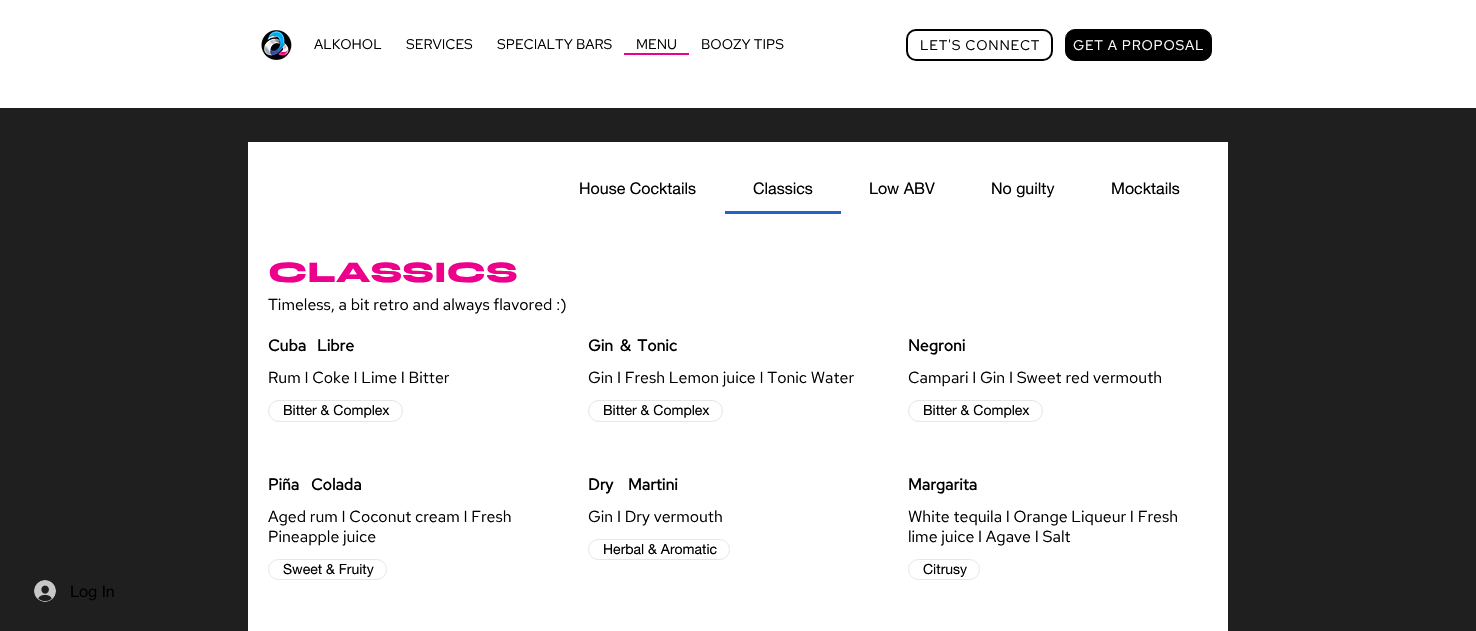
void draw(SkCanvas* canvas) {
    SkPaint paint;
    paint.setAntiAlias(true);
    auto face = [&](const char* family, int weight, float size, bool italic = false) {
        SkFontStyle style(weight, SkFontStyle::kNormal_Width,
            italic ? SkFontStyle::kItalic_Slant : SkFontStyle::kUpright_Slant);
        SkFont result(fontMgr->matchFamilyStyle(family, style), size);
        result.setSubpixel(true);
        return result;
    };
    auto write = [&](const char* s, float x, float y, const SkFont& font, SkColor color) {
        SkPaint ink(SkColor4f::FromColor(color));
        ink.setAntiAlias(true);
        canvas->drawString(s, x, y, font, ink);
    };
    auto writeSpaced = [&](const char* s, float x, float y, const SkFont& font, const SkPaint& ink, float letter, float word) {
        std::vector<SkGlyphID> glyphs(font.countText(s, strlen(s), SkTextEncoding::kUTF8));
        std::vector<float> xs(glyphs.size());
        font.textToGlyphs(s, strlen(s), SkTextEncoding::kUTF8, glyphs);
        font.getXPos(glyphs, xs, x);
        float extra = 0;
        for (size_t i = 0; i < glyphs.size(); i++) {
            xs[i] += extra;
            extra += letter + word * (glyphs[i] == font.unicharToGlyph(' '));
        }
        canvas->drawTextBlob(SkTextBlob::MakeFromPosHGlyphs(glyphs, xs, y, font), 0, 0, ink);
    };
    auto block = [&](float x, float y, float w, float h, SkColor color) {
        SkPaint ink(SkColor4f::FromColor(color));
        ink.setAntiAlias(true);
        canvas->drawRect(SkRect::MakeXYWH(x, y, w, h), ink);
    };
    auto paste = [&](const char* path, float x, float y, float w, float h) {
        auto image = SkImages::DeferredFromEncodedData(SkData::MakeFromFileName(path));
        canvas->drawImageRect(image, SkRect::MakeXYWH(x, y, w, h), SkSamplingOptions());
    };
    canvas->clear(SK_ColorWHITE);
    paste("pic1.png", 261, 30, 31, 30);
    auto kFont1 = face("Red Hat Text", 400, 14);
    write("ALKOHOL", 314, 49, kFont1, SK_ColorBLACK);
    write("SERVICES", 406, 49, kFont1, SK_ColorBLACK);
    write("SPECIALTY BARS", 497, 49, kFont1, SK_ColorBLACK);
    block(624, 53, 65, 2, SkColorSetRGB(236, 0, 140));
    write("MENU", 636, 49, kFont1, SK_ColorBLACK);
    write("BOOZY TIPS", 701, 49, kFont1, SK_ColorBLACK);
    paint.setStyle(SkPaint::kStroke_Style);
    paint.setStrokeWidth(2);
    paint.setColor(SK_ColorBLACK);
    canvas->drawRoundRect(SkRect::MakeXYWH(907, 30, 145, 30), 9, 9, paint);
    paint.setStyle(SkPaint::kFill_Style);
    writeSpaced("LET'S CONNECT", 920, 50, kFont1, paint, 0.75f, 0);
    canvas->drawRoundRect(SkRect::MakeXYWH(1065.5f, 29.5f, 146, 31), 9.5f, 9.5f, paint);
    paint.setStyle(SkPaint::kStroke_Style);
    paint.setStrokeWidth(1);
    canvas->drawRoundRect(SkRect::MakeXYWH(1065.5f, 29.5f, 146, 31), 9.5f, 9.5f, paint);
    paint.setStyle(SkPaint::kFill_Style);
    paint.setColor(SK_ColorWHITE);
    writeSpaced("GET A PROPOSAL", 1073, 50, kFont1, paint, 0.75f, 0);
    block(0, 108, 1476, 523, SkColorSetRGB(31, 31, 31));
    block(248, 142, 980, 489, SK_ColorWHITE);
    auto kFont2 = face("helvetica neue", 400, 16);
    write("House Cocktails", 579, 194, kFont2, SK_ColorBLACK);
    block(725, 211, 116, 3, SkColorSetRGB(37, 100, 195));
    write("Classics", 753, 194, kFont2, SK_ColorBLACK);
    write("Low ABV", 869, 194, kFont2, SK_ColorBLACK);
    write("No guilty", 991, 194, kFont2, SK_ColorBLACK);
    write("Mocktails", 1111, 194, kFont2, SK_ColorBLACK);
    auto kFont3 = face("Syne", 800, 30);
    write("CLASSICS", 268, 282, kFont3, SkColorSetRGB(236, 0, 140));
    auto kFont4 = face("Red Hat Text", 400, 16);
    write("Timeless, a bit retro and always flavored :)", 268, 310, kFont4, SK_ColorBLACK);
    auto kFont5 = face("Red Hat Text", 700, 16);
    paint.setColor(SK_ColorBLACK);
    writeSpaced("Cuba Libre", 268, 351, kFont5, paint, 0, 7);
    write("Rum I Coke I Lime I Bitter", 268, 383, kFont4, SK_ColorBLACK);
    paint.setStyle(SkPaint::kStroke_Style);
    paint.setColor(SkColorSetRGB(230, 230, 230));
    canvas->drawRoundRect(SkRect::MakeXYWH(268.5f, 400.5f, 134, 21), 10.5f, 10.5f, paint);
    auto kFont6 = face("helvetica neue", 400, 14);
    write("Bitter & Complex", 283, 415, kFont6, SK_ColorBLACK);
    paint.setStyle(SkPaint::kFill_Style);
    paint.setColor(SK_ColorBLACK);
    writeSpaced("Gin & Tonic", 588, 351, kFont5, paint, 0, 3);
    write("Gin I Fresh Lemon juice I Tonic Water", 588, 383, kFont4, SK_ColorBLACK);
    paint.setStyle(SkPaint::kStroke_Style);
    paint.setColor(SkColorSetRGB(230, 230, 230));
    canvas->drawRoundRect(SkRect::MakeXYWH(588.5f, 400.5f, 134, 21), 10.5f, 10.5f, paint);
    write("Bitter & Complex", 603, 415, kFont6, SK_ColorBLACK);
    write("Negroni", 908, 351, kFont5, SK_ColorBLACK);
    write("Campari I Gin I Sweet red vermouth", 908, 383, kFont4, SK_ColorBLACK);
    canvas->drawRoundRect(SkRect::MakeXYWH(908.5f, 400.5f, 134, 21), 10.5f, 10.5f, paint);
    write("Bitter & Complex", 923, 415, kFont6, SK_ColorBLACK);
    paint.setStyle(SkPaint::kFill_Style);
    paint.setColor(SK_ColorBLACK);
    writeSpaced("Piña Colada", 268, 490, kFont5, paint, 0, 8);
    write("Aged rum I Coconut cream I Fresh", 268, 522, kFont4, SK_ColorBLACK);
    write("Pineapple juice", 268, 542, kFont4, SK_ColorBLACK);
    paint.setStyle(SkPaint::kStroke_Style);
    paint.setColor(SkColorSetRGB(230, 230, 230));
    canvas->drawRoundRect(SkRect::MakeXYWH(268.5f, 559.5f, 118, 20), 10, 10, paint);
    write("Sweet & Fruity", 283, 574, kFont6, SK_ColorBLACK);
    paint.setStyle(SkPaint::kFill_Style);
    paint.setColor(SK_ColorBLACK);
    writeSpaced("Dry Martini", 588, 490, kFont5, paint, 0, 11);
    write("Gin I Dry vermouth", 588, 522, kFont4, SK_ColorBLACK);
    paint.setStyle(SkPaint::kStroke_Style);
    paint.setColor(SkColorSetRGB(230, 230, 230));
    canvas->drawRoundRect(SkRect::MakeXYWH(588.5f, 539.5f, 141, 20), 10, 10, paint);
    write("Herbal & Aromatic", 603, 554, kFont6, SK_ColorBLACK);
    write("Margarita", 908, 490, kFont5, SK_ColorBLACK);
    write("White tequila I Orange Liqueur I Fresh", 908, 522, kFont4, SK_ColorBLACK);
    write("lime juice I Agave I Salt", 908, 542, kFont4, SK_ColorBLACK);
    canvas->drawRoundRect(SkRect::MakeXYWH(908.5f, 559.5f, 71, 20), 10, 10, paint);
    write("Citrusy", 923, 574, kFont6, SK_ColorBLACK);
    paste("pic2.png", 34, 580, 22, 22);
    write("Log In", 70, 597, kFont2, SK_ColorBLACK);
}
